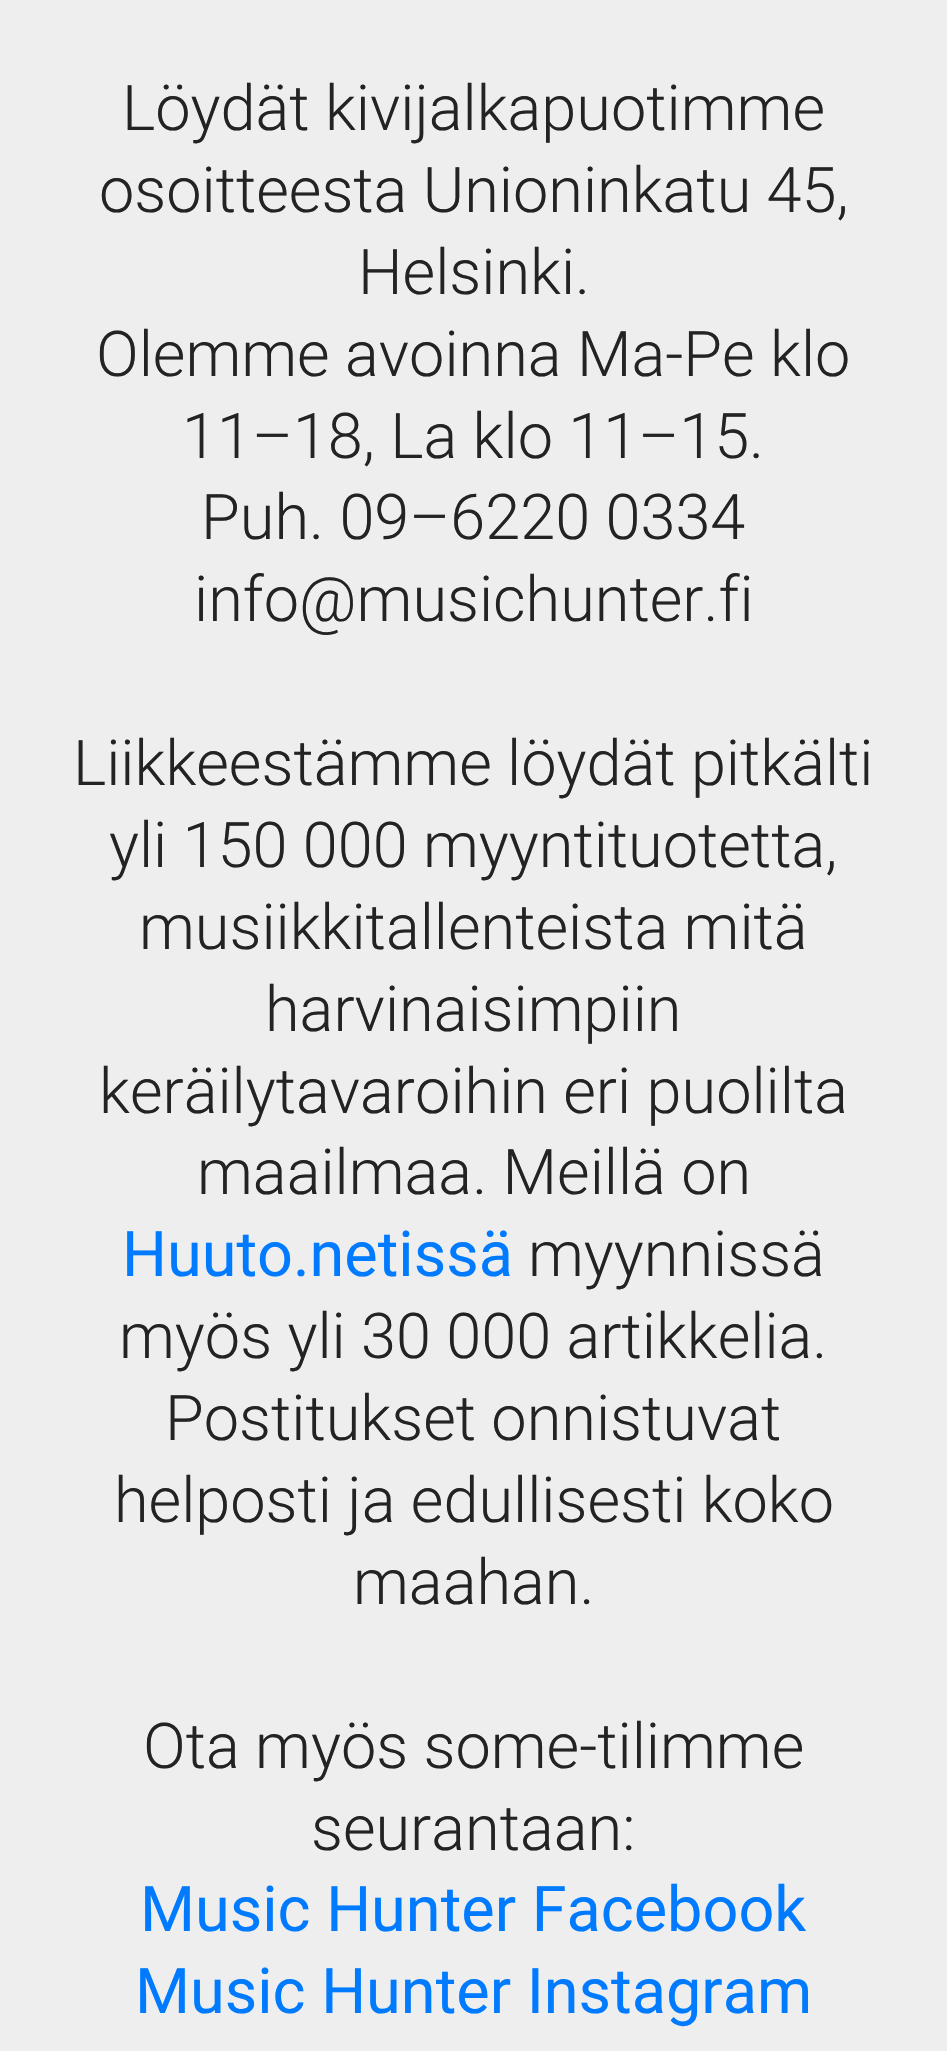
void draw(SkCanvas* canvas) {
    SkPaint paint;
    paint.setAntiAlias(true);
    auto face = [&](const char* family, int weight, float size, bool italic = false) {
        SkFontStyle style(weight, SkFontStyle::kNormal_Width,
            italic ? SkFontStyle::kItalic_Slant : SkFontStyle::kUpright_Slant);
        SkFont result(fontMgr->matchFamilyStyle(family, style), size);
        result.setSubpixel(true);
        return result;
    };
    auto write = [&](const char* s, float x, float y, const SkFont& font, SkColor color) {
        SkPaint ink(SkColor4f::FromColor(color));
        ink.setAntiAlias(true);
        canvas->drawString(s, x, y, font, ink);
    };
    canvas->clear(SkColorSetRGB(238, 238, 238));
    auto kFont1 = face("Roboto", 300, 63);
    write("Löydät kivijalkapuotimme", 122, 130, kFont1, SkColorSetRGB(35, 35, 35));
    write("osoitteesta Unioninkatu 45,", 99, 212, kFont1, SkColorSetRGB(35, 35, 35));
    write("Helsinki.", 358, 294, kFont1, SkColorSetRGB(35, 35, 35));
    write("Olemme avoinna Ma-Pe klo", 96, 376, kFont1, SkColorSetRGB(35, 35, 35));
    write("11–18, La klo 11–15.", 182, 458, kFont1, SkColorSetRGB(35, 35, 35));
    write("Puh. 09–6220 0334", 201, 539, kFont1, SkColorSetRGB(35, 35, 35));
    write("info@musichunter.fi", 194, 621, kFont1, SkColorSetRGB(35, 35, 35));
    write("Liikkeestämme löydät pitkälti", 73, 785, kFont1, SkColorSetRGB(35, 35, 35));
    write("yli 150 000 myyntituotetta,", 109, 867, kFont1, SkColorSetRGB(35, 35, 35));
    write("musiikkitallenteista mitä", 139, 949, kFont1, SkColorSetRGB(35, 35, 35));
    write("harvinaisimpiin", 265, 1031, kFont1, SkColorSetRGB(35, 35, 35));
    write("keräilytavaroihin eri puolilta", 99, 1113, kFont1, SkColorSetRGB(35, 35, 35));
    write("maailmaa. Meillä on", 197, 1194, kFont1, SkColorSetRGB(35, 35, 35));
    auto kFont2 = face("Roboto", 400, 63);
    write("Huuto.netissä", 122, 1276, kFont2, SkColorSetRGB(0, 123, 255));
    write("myynnissä", 528, 1276, kFont1, SkColorSetRGB(35, 35, 35));
    write("myös yli 30 000 artikkelia.", 119, 1358, kFont1, SkColorSetRGB(35, 35, 35));
    write("Postitukset onnistuvat", 165, 1440, kFont1, SkColorSetRGB(35, 35, 35));
    write("helposti ja edullisesti koko", 114, 1522, kFont1, SkColorSetRGB(35, 35, 35));
    write("maahan.", 353, 1604, kFont1, SkColorSetRGB(35, 35, 35));
    write("Ota myös some-tilimme", 143, 1768, kFont1, SkColorSetRGB(35, 35, 35));
    write("seurantaan:", 311, 1850, kFont1, SkColorSetRGB(35, 35, 35));
    write("Music Hunter Facebook", 140, 1931, kFont2, SkColorSetRGB(0, 123, 255));
    write("Music Hunter Instagram", 135, 2013, kFont2, SkColorSetRGB(0, 123, 255));
}
